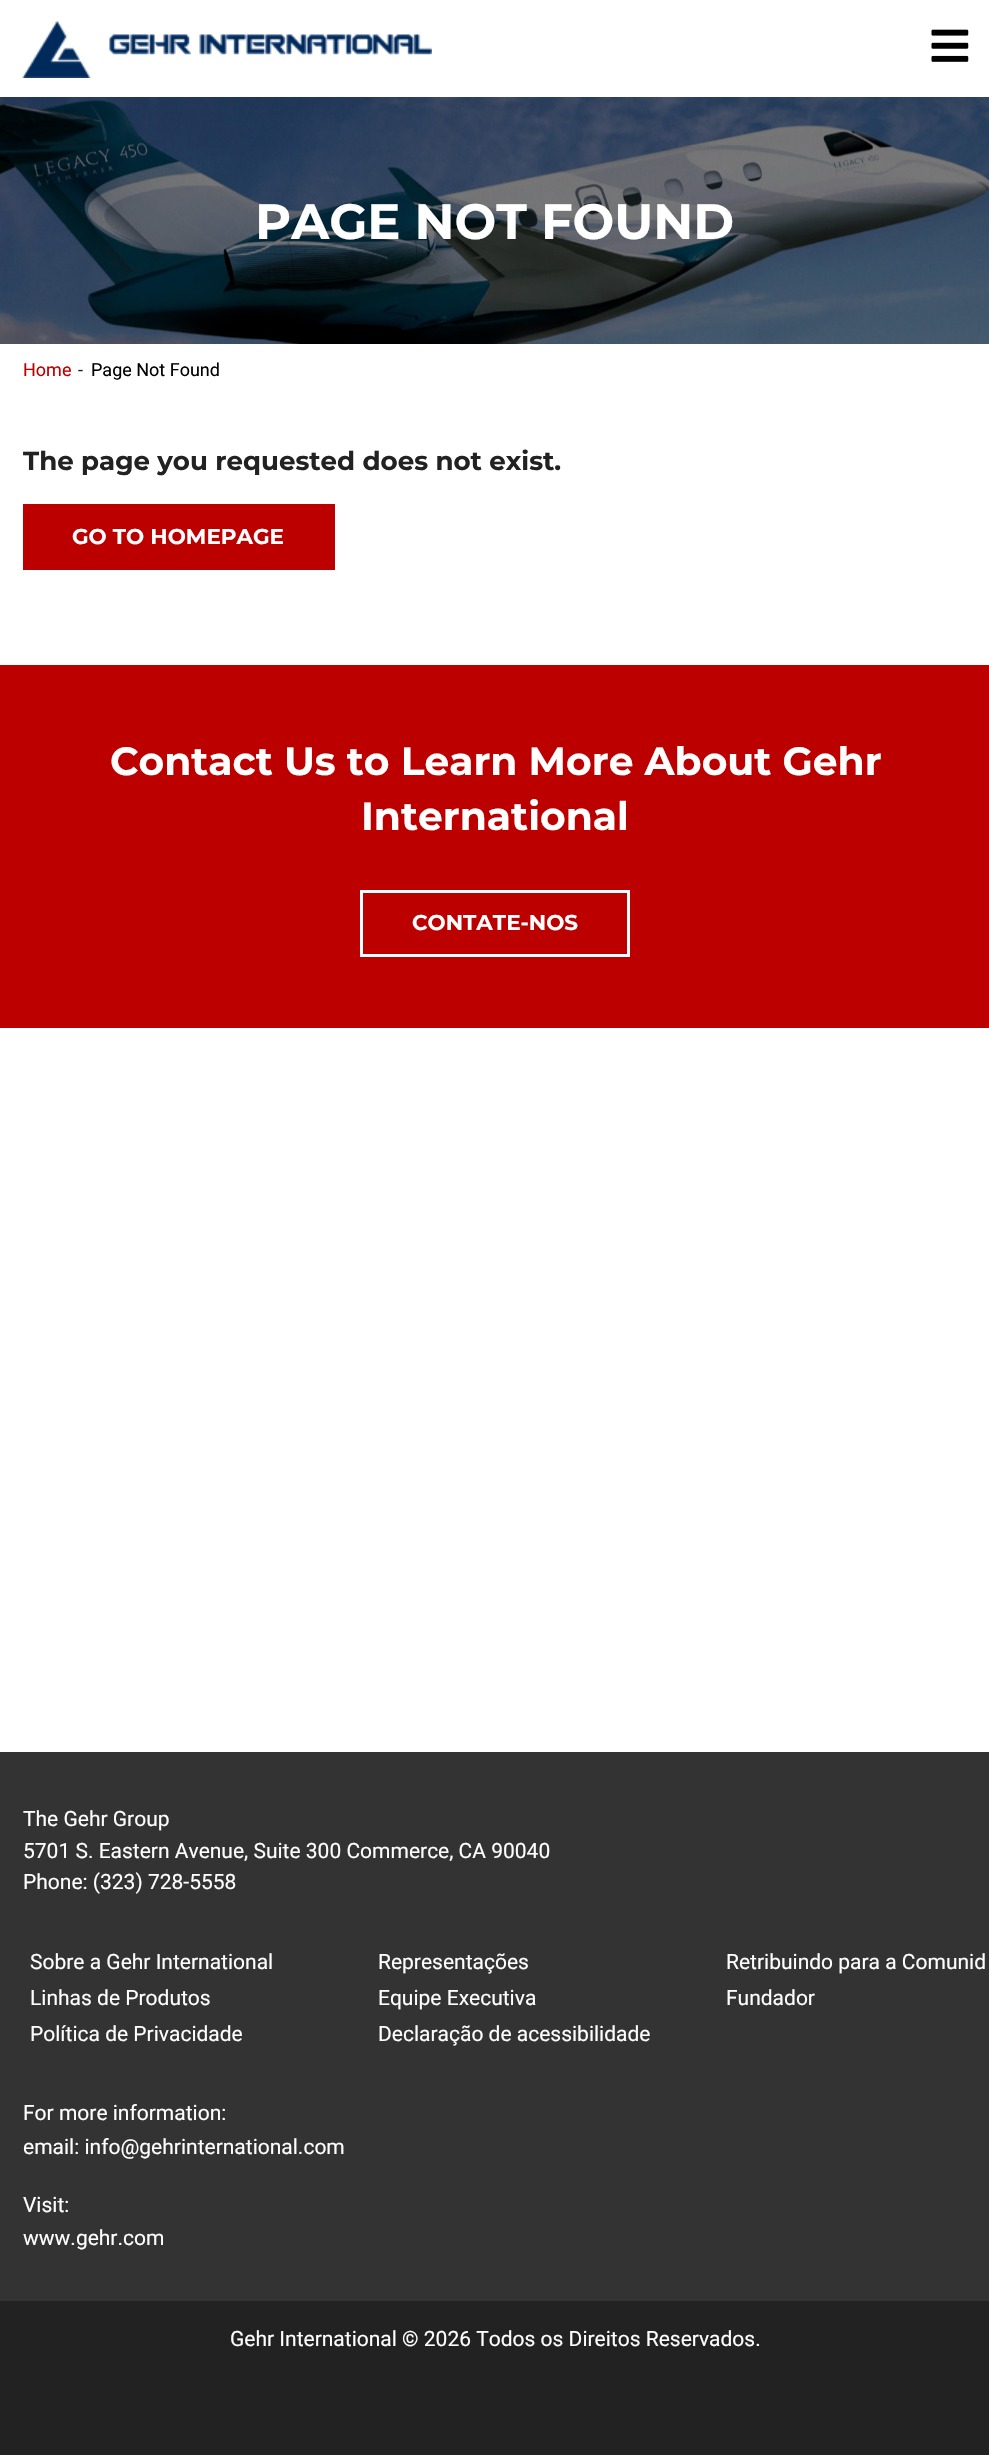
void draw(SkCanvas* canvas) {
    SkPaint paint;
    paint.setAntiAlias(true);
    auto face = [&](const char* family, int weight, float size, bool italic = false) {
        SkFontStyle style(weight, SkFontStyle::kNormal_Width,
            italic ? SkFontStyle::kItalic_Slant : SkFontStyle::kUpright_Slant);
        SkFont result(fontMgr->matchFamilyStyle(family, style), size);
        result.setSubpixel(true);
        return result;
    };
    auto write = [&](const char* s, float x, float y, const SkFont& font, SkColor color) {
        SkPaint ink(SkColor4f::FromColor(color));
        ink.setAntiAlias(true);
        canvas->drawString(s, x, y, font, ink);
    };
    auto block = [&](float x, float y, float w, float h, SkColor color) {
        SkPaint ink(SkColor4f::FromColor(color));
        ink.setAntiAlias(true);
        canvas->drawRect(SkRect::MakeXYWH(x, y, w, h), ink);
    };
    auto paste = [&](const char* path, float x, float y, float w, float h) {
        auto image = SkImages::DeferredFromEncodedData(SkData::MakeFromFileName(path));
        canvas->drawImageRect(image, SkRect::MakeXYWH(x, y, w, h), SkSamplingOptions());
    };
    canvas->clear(SK_ColorWHITE);
    paste("pic1.png", 22, 20, 410, 58);
    paste("pic2.png", 931, 29, 38, 33);
    paste("pic3.png", 0, 97, 989, 247);
    auto kFont1 = face("Montserrat", 700, 49.5f);
    write("PAGE NOT FOUND", 255, 239, kFont1, SK_ColorWHITE);
    auto kFont2 = face("Roboto", 400, 18);
    write("Home", 23, 376, kFont2, SkColorSetRGB(188, 0, 0));
    write("-", 78, 376, kFont2, SkColorSetRGB(34, 34, 34));
    write("Page Not Found", 91, 376, kFont2, SK_ColorBLACK);
    auto kFont3 = face("Montserrat", 700, 26.1f);
    write("The page you requested does not exist.", 23, 470, kFont3, SkColorSetRGB(34, 34, 34));
    block(23, 504, 312, 66, SkColorSetRGB(188, 0, 0));
    auto kFont4 = face("Montserrat", 700, 21.5f);
    write("GO TO HOMEPAGE", 72, 544, kFont4, SK_ColorWHITE);
    block(0, 665, 989, 363, SkColorSetRGB(188, 0, 0));
    auto kFont5 = face("Montserrat", 700, 39.25f);
    write("Contact Us to Learn More About Gehr", 110, 775, kFont5, SK_ColorWHITE);
    write("International", 361, 830, kFont5, SK_ColorWHITE);
    paint.setStyle(SkPaint::kStroke_Style);
    paint.setStrokeWidth(3);
    paint.setColor(SK_ColorWHITE);
    canvas->drawRect(SkRect::MakeXYWH(361.5f, 891.5f, 267, 64), paint);
    write("CONTATE-NOS", 412, 930, kFont4, SK_ColorWHITE);
    block(0, 1752, 989, 549, SkColorSetRGB(51, 51, 51));
    auto kFont6 = face("Roboto", 400, 21);
    write("The Gehr Group", 23, 1826, kFont6, SK_ColorWHITE);
    write("5701 S. Eastern Avenue, Suite 300 Commerce, CA 90040", 23, 1858, kFont6, SK_ColorWHITE);
    write("Phone: (323) 728-5558", 23, 1889, kFont6, SK_ColorWHITE);
    write("Sobre a Gehr International", 30, 1969, kFont6, SK_ColorWHITE);
    write("Representações", 378, 1969, kFont6, SK_ColorWHITE);
    write("Retribuindo para a Comunid", 726, 1969, kFont6, SK_ColorWHITE);
    write("Linhas de Produtos", 30, 2005, kFont6, SK_ColorWHITE);
    write("Equipe Executiva", 378, 2005, kFont6, SK_ColorWHITE);
    write("Fundador", 726, 2005, kFont6, SK_ColorWHITE);
    write("Política de Privacidade", 30, 2041, kFont6, SK_ColorWHITE);
    write("Declaração de acessibilidade", 378, 2041, kFont6, SK_ColorWHITE);
    write("For more information:", 23, 2120, kFont6, SK_ColorWHITE);
    write("email: info@gehrinternational.com", 23, 2154, kFont6, SK_ColorWHITE);
    write("Visit:", 23, 2212, kFont6, SK_ColorWHITE);
    write("www.gehr.com", 23, 2245, kFont6, SK_ColorWHITE);
    block(0, 2301, 989, 154, SkColorSetRGB(34, 34, 34));
    write("Gehr International © 2026 Todos os Direitos Reservados.", 230, 2346, kFont6, SK_ColorWHITE);
}
